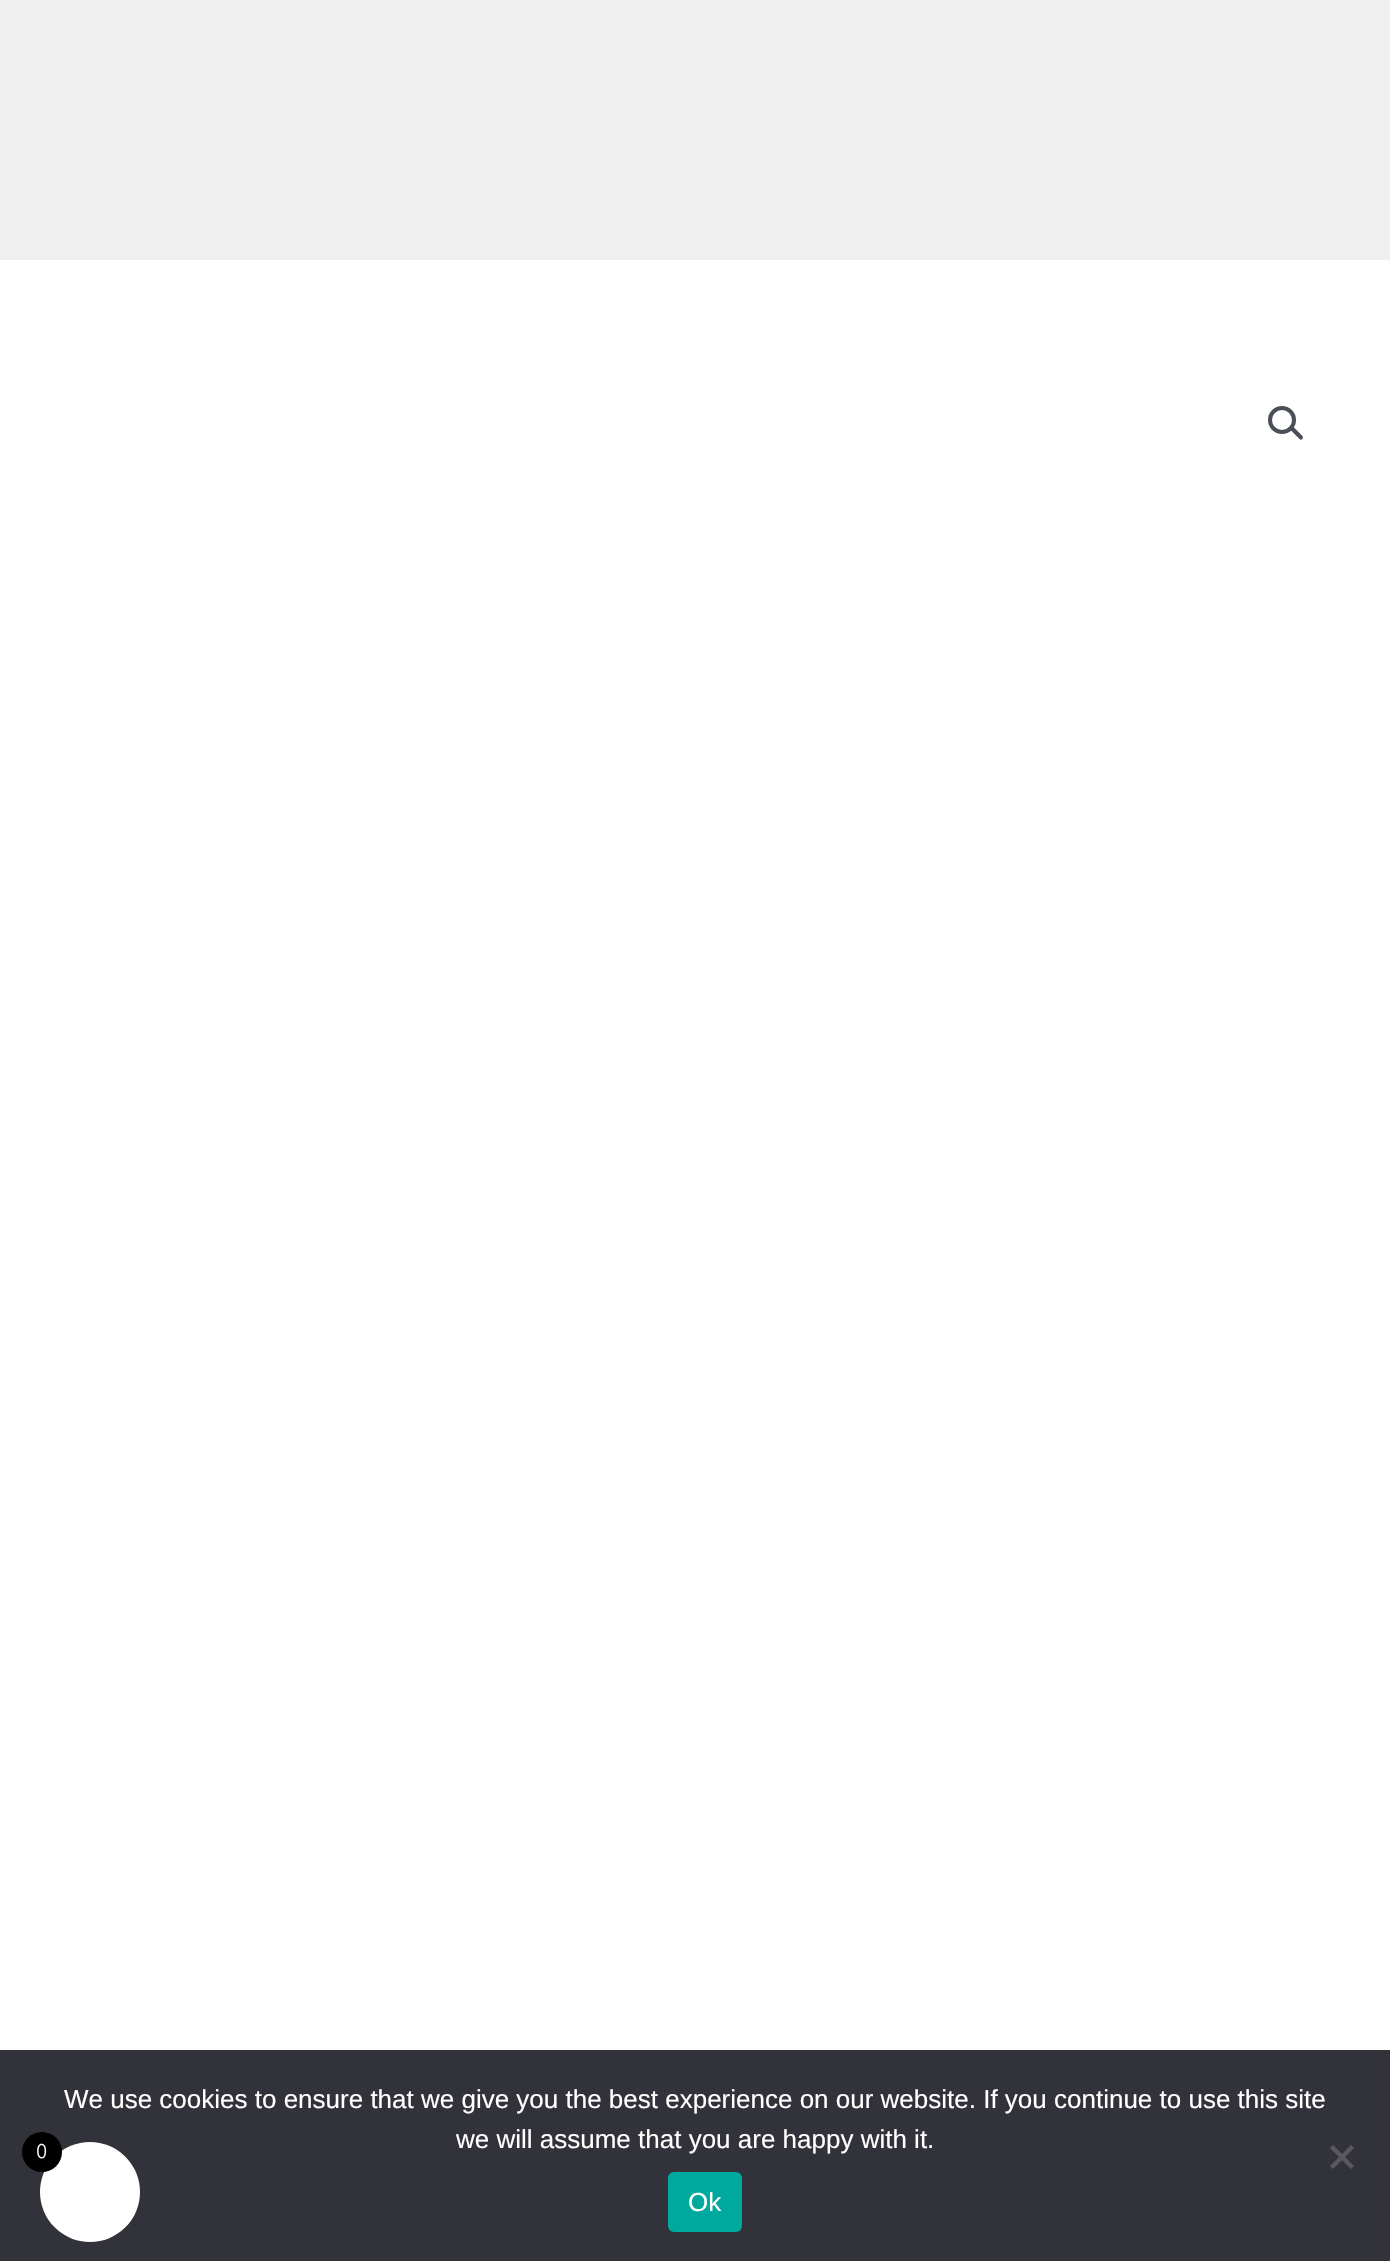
void draw(SkCanvas* canvas) {
    SkPaint paint;
    paint.setAntiAlias(true);
    auto face = [&](const char* family, int weight, float size, bool italic = false) {
        SkFontStyle style(weight, SkFontStyle::kNormal_Width,
            italic ? SkFontStyle::kItalic_Slant : SkFontStyle::kUpright_Slant);
        SkFont result(fontMgr->matchFamilyStyle(family, style), size);
        result.setSubpixel(true);
        return result;
    };
    auto write = [&](const char* s, float x, float y, const SkFont& font, SkColor color) {
        SkPaint ink(SkColor4f::FromColor(color));
        ink.setAntiAlias(true);
        canvas->drawString(s, x, y, font, ink);
    };
    auto block = [&](float x, float y, float w, float h, SkColor color) {
        SkPaint ink(SkColor4f::FromColor(color));
        ink.setAntiAlias(true);
        canvas->drawRect(SkRect::MakeXYWH(x, y, w, h), ink);
    };
    auto card = [&](float x, float y, float w, float h, float radius, SkColor color) {
        SkPaint ink(SkColor4f::FromColor(color));
        ink.setAntiAlias(true);
        canvas->drawRoundRect(SkRect::MakeXYWH(x, y, w, h), radius, radius, ink);
    };
    canvas->clear(SK_ColorWHITE);
    block(0, 0, 1390, 260, SkColorSetRGB(239, 239, 239));
    paint.setStyle(SkPaint::kStroke_Style);
    paint.setStrokeWidth(4);
    paint.setColor(SkColorSetRGB(75, 79, 88));
    canvas->drawCircle(1282, 420, 12, paint);
    paint.setStyle(SkPaint::kFill_Style);
    canvas->drawPath(SkPathBuilder().moveTo(1291, 427.5f).cubicTo(1292, 427, 1293, 427, 1294, 427.5f).lineTo(1302.5f, 436).cubicTo(1303, 437, 1303, 438, 1302.5f, 439).cubicTo(1301.5f, 440, 1300.5f, 440, 1299.5f, 439).lineTo(1291, 430.5f).cubicTo(1290, 429.5f, 1290, 428.5f, 1291, 427.5f).close().detach(), paint);
    block(0, 2050, 1390, 211, SkColorSetRGB(50, 50, 58));
    paint.setColor(SK_ColorWHITE);
    canvas->drawCircle(90, 2192, 50, paint);
    paint.setColor(SK_ColorBLACK);
    canvas->drawCircle(42, 2152, 20, paint);
    auto kFont1 = face("Ubuntu", 300, 20);
    write("0", 36, 2158, kFont1, SK_ColorWHITE);
    auto kFont2 = face("Liberation Sans", 400, 26);
    write("We use cookies to ensure that we give you the best experience on our website. If you continue to use this site", 64, 2108, kFont2, SK_ColorWHITE);
    write("we will assume that you are happy with it.", 456, 2148, kFont2, SK_ColorWHITE);
    paint.setColor(SkColorSetRGB(89, 89, 93));
    canvas->drawPath(SkPathBuilder().moveTo(1351, 2145).lineTo(1354, 2148).lineTo(1333, 2169).lineTo(1330, 2166).close().detach(), paint);
    canvas->drawPath(SkPathBuilder().moveTo(1330, 2148).lineTo(1333, 2145).lineTo(1354, 2166).lineTo(1351, 2169).close().detach(), paint);
    card(668, 2172, 74, 60, 6, SkColorSetRGB(0, 169, 157));
    write("Ok", 688, 2211, kFont2, SK_ColorWHITE);
}
